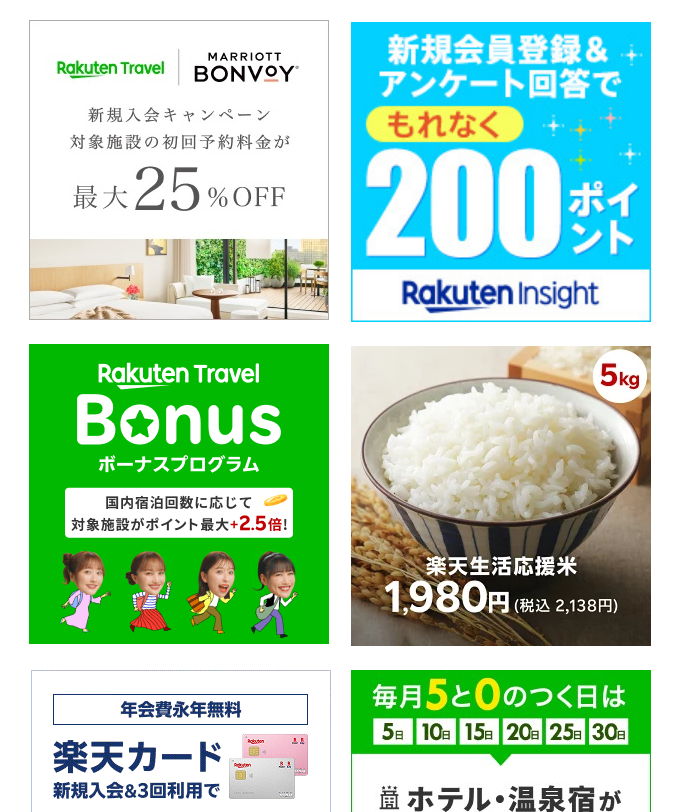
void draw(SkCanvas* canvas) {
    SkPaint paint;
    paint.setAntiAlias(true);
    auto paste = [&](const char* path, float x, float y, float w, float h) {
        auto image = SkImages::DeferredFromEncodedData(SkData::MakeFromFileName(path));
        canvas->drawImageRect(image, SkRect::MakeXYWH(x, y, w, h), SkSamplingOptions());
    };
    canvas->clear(SK_ColorWHITE);
    paste("pic1.png", 29, 20, 300, 300);
    paste("pic2.png", 351, 22, 300, 300);
    paste("pic3.png", 29, 344, 300, 300);
    paste("pic4.png", 351, 346, 300, 300);
    paste("pic5.png", 31, 670, 300, 142);
    paste("pic6.png", 351, 670, 300, 142);
}
